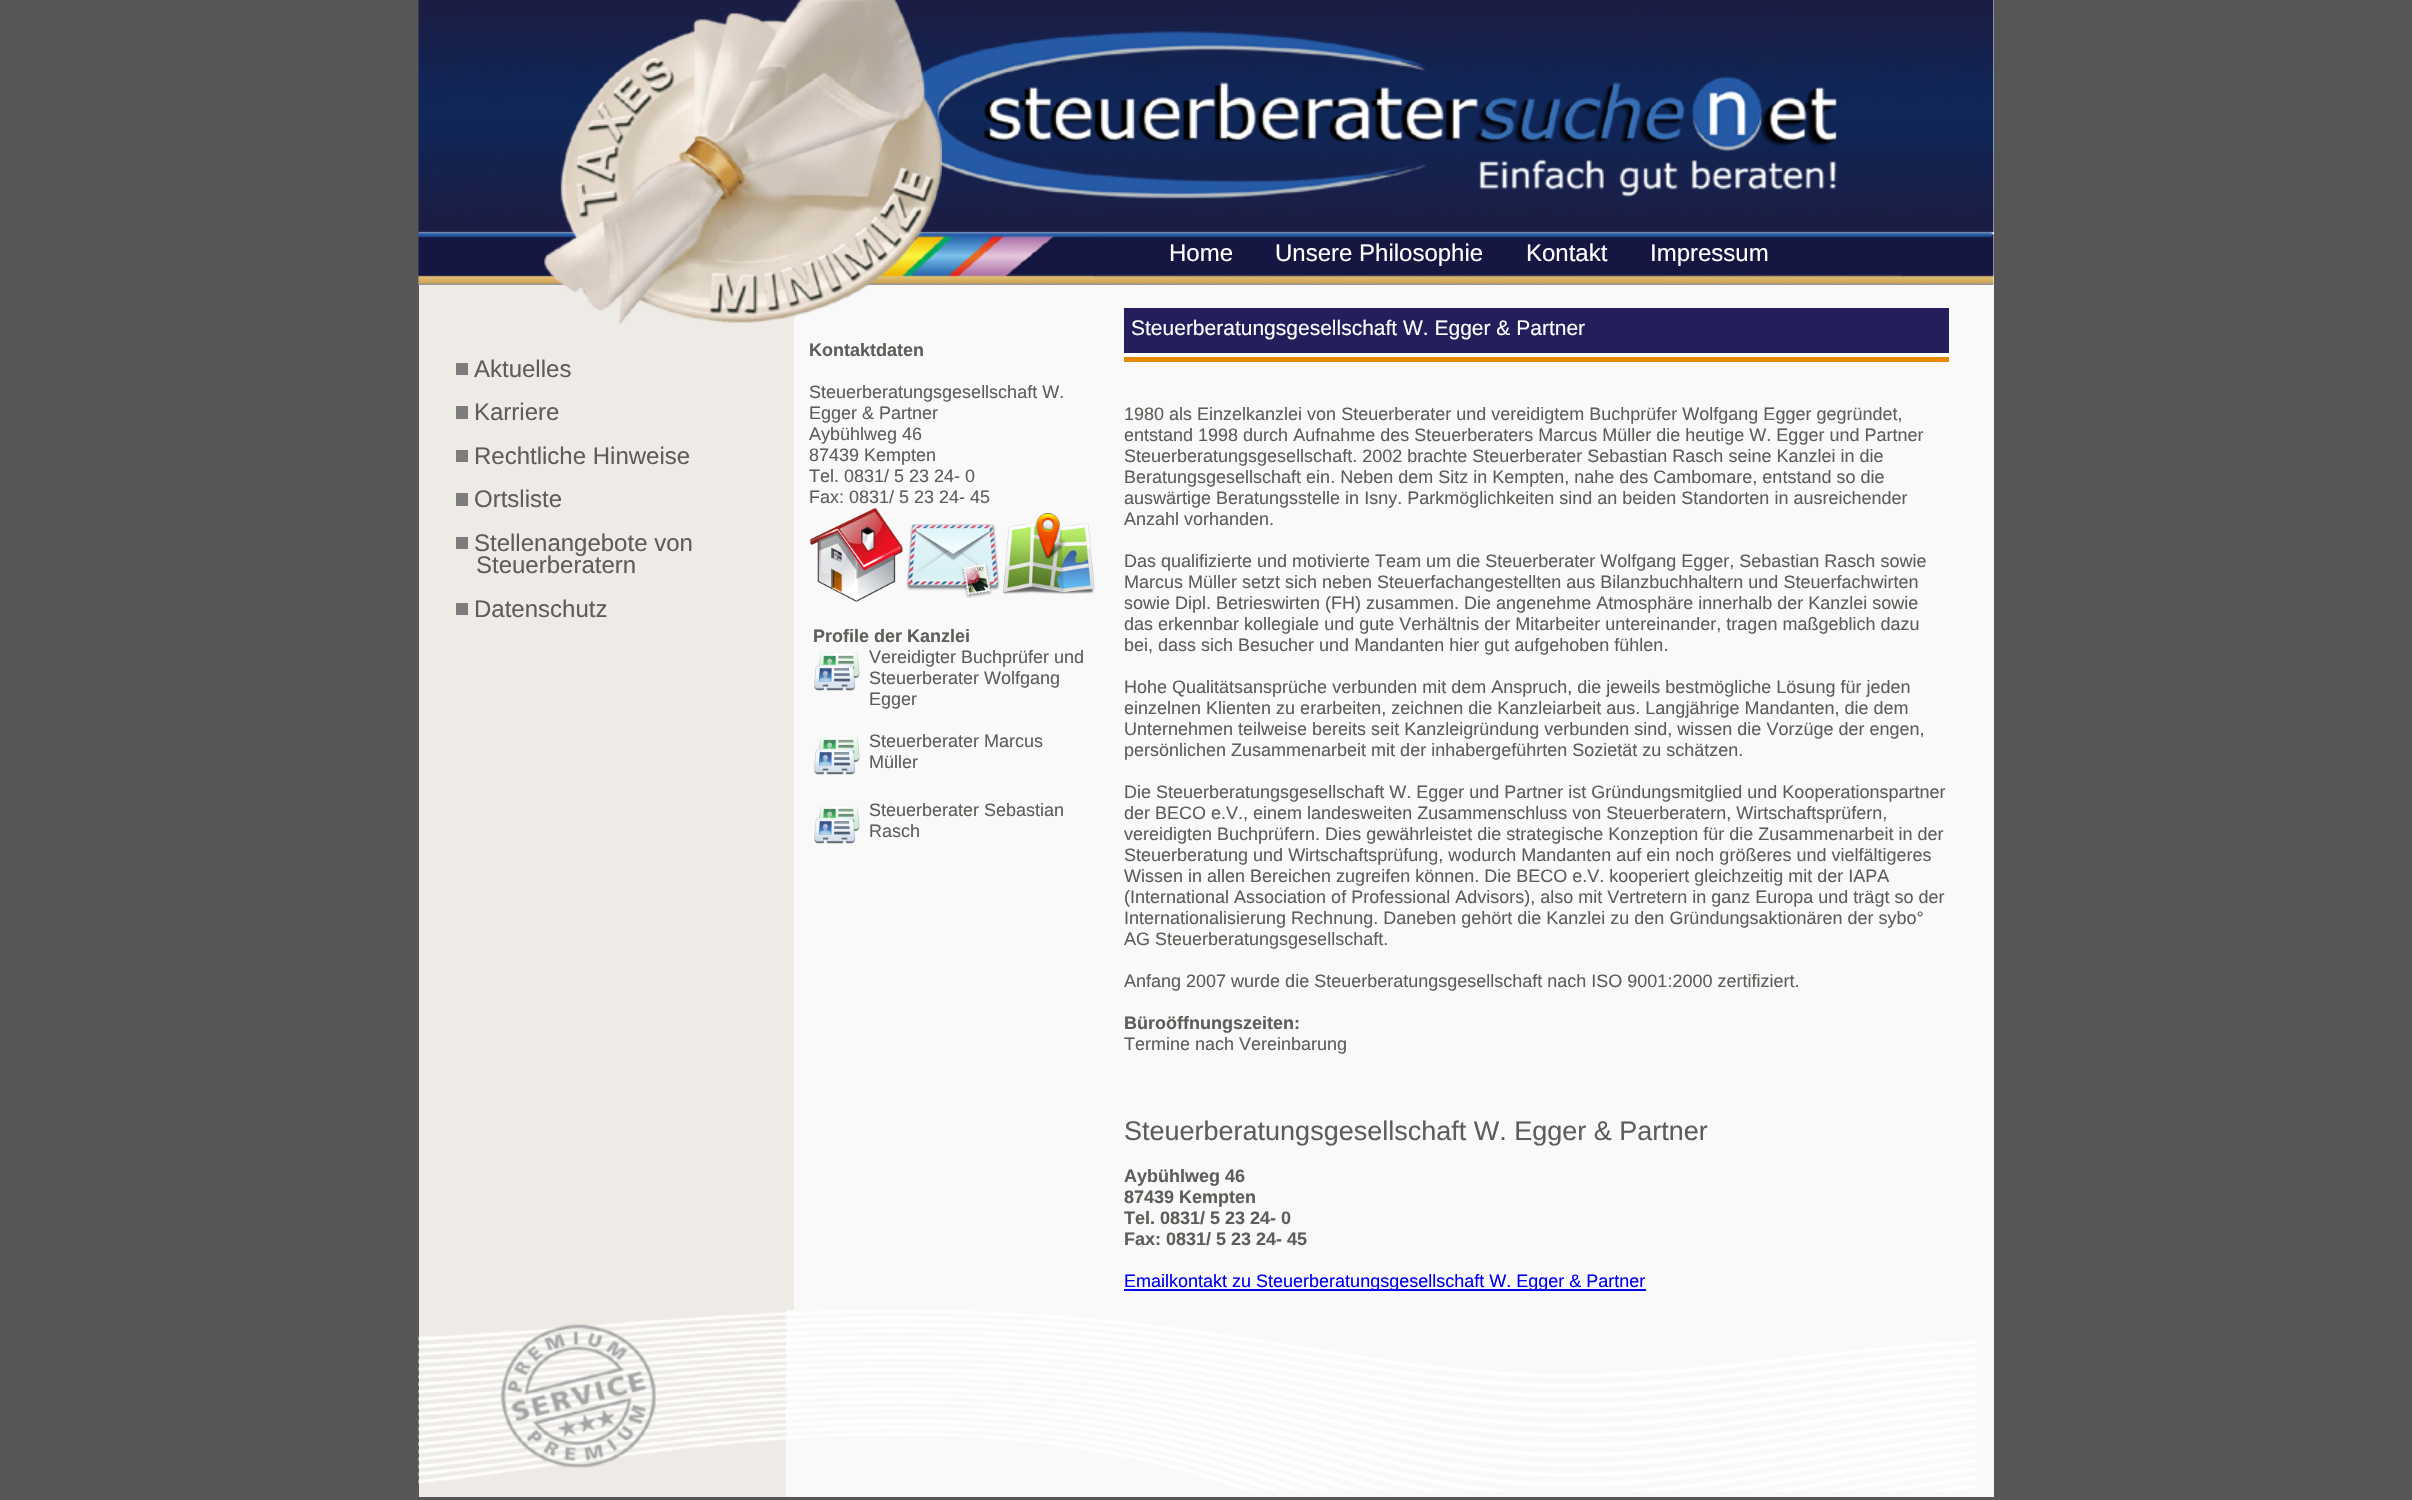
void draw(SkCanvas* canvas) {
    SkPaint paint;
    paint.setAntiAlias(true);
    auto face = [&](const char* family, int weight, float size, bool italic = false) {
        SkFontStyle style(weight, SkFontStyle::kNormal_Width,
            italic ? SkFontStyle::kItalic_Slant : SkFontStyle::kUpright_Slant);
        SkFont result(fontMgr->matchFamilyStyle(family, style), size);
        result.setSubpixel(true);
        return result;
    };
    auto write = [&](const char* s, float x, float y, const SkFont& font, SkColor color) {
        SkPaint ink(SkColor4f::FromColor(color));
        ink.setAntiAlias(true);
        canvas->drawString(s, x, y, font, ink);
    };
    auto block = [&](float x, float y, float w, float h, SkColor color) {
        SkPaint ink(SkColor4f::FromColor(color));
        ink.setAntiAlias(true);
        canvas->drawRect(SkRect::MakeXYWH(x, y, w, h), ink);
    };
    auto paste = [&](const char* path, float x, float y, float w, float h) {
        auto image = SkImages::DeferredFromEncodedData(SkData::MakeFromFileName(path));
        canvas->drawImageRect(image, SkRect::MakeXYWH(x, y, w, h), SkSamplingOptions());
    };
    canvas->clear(SkColorSetRGB(87, 86, 86));
    block(1993, 233, 1, 52, SK_ColorWHITE);
    block(419, 0, 1575, 233, SK_ColorWHITE);
    paste("pic2.png", 418, 0, 1576, 233);
    paste("pic1.png", 418, 232, 1576, 53);
    auto kFont1 = face("Liberation Sans", 400, 24);
    write("Home", 1169, 261, kFont1, SK_ColorWHITE);
    write("Unsere Philosophie", 1275, 261, kFont1, SK_ColorWHITE);
    write("Kontakt", 1526, 261, kFont1, SK_ColorWHITE);
    write("Impressum", 1650, 261, kFont1, SK_ColorWHITE);
    block(419, 285, 375, 1025, SkColorSetRGB(238, 235, 230));
    block(794, 285, 1200, 1025, SkColorSetRGB(249, 249, 249));
    paste("pic3.png", 544, 0, 398, 324);
    write("Aktuelles", 474, 377, kFont1, SkColorSetRGB(94, 93, 89));
    block(456, 363, 12, 12, SkColorSetRGB(125, 125, 125));
    write("Karriere", 474, 420, kFont1, SkColorSetRGB(94, 93, 89));
    block(456, 406, 12, 13, SkColorSetRGB(125, 125, 125));
    write("Rechtliche Hinweise", 474, 464, kFont1, SkColorSetRGB(94, 93, 89));
    block(456, 450, 12, 12, SkColorSetRGB(125, 125, 125));
    write("Ortsliste", 474, 507, kFont1, SkColorSetRGB(94, 93, 89));
    block(456, 493, 12, 13, SkColorSetRGB(125, 125, 125));
    write("Stellenangebote von", 474, 551, kFont1, SkColorSetRGB(94, 93, 89));
    block(456, 537, 12, 12, SkColorSetRGB(125, 125, 125));
    write("Steuerberatern", 476, 573, kFont1, SkColorSetRGB(94, 93, 89));
    write("Datenschutz", 474, 617, kFont1, SkColorSetRGB(94, 93, 89));
    block(456, 603, 12, 12, SkColorSetRGB(125, 125, 125));
    auto kFont2 = face("Liberation Sans", 700, 18);
    write("Kontaktdaten", 809, 356, kFont2, SkColorSetRGB(94, 93, 89));
    auto kFont3 = face("Liberation Sans", 400, 18);
    write("Steuerberatungsgesellschaft W.", 809, 398, kFont3, SkColorSetRGB(94, 93, 89));
    write("Egger & Partner", 809, 419, kFont3, SkColorSetRGB(94, 93, 89));
    write("Aybühlweg 46", 809, 440, kFont3, SkColorSetRGB(94, 93, 89));
    write("87439 Kempten", 809, 461, kFont3, SkColorSetRGB(94, 93, 89));
    write("Tel. 0831/ 5 23 24- 0", 809, 482, kFont3, SkColorSetRGB(94, 93, 89));
    write("Fax: 0831/ 5 23 24- 45", 809, 503, kFont3, SkColorSetRGB(94, 93, 89));
    paste("pic4.png", 810, 507, 93, 95);
    paste("pic5.png", 906, 524, 94, 74);
    paste("pic6.png", 1002, 513, 93, 81);
    write("Profile der Kanzlei", 813, 642, kFont2, SkColorSetRGB(94, 93, 89));
    paste("pic7.png", 814, 652, 46, 39);
    write("Vereidigter Buchprüfer und", 869, 663, kFont3, SkColorSetRGB(94, 93, 89));
    write("Steuerberater Wolfgang", 869, 684, kFont3, SkColorSetRGB(94, 93, 89));
    write("Egger", 869, 705, kFont3, SkColorSetRGB(94, 93, 89));
    paste("pic7.png", 814, 736, 46, 39);
    write("Steuerberater Marcus", 869, 747, kFont3, SkColorSetRGB(94, 93, 89));
    write("Müller", 869, 768, kFont3, SkColorSetRGB(94, 93, 89));
    paste("pic7.png", 814, 805, 46, 39);
    write("Steuerberater Sebastian", 869, 816, kFont3, SkColorSetRGB(94, 93, 89));
    write("Rasch", 869, 837, kFont3, SkColorSetRGB(94, 93, 89));
    block(1124, 308, 825, 45, SkColorSetRGB(36, 30, 92));
    auto kFont4 = face("Liberation Sans", 400, 21);
    write("Steuerberatungsgesellschaft W. Egger & Partner", 1131, 335, kFont4, SK_ColorWHITE);
    block(1124, 353, 825, 4, SK_ColorWHITE);
    block(1124, 357, 825, 5, SkColorSetRGB(231, 137, 5));
    write("1980 als Einzelkanzlei von Steuerberater und vereidigtem Buchprüfer Wolfgang Egger gegründet,", 1124, 420, kFont3, SkColorSetRGB(94, 93, 89));
    write("entstand 1998 durch Aufnahme des Steuerberaters Marcus Müller die heutige W. Egger und Partner", 1124, 441, kFont3, SkColorSetRGB(94, 93, 89));
    write("Steuerberatungsgesellschaft. 2002 brachte Steuerberater Sebastian Rasch seine Kanzlei in die", 1124, 462, kFont3, SkColorSetRGB(94, 93, 89));
    write("Beratungsgesellschaft ein. Neben dem Sitz in Kempten, nahe des Cambomare, entstand so die", 1124, 483, kFont3, SkColorSetRGB(94, 93, 89));
    write("auswärtige Beratungsstelle in Isny. Parkmöglichkeiten sind an beiden Standorten in ausreichender", 1124, 504, kFont3, SkColorSetRGB(94, 93, 89));
    write("Anzahl vorhanden.", 1124, 525, kFont3, SkColorSetRGB(94, 93, 89));
    write("Das qualifizierte und motivierte Team um die Steuerberater Wolfgang Egger, Sebastian Rasch sowie", 1124, 567, kFont3, SkColorSetRGB(94, 93, 89));
    write("Marcus Müller setzt sich neben Steuerfachangestellten aus Bilanzbuchhaltern und Steuerfachwirten", 1124, 588, kFont3, SkColorSetRGB(94, 93, 89));
    write("sowie Dipl. Betrieswirten (FH) zusammen. Die angenehme Atmosphäre innerhalb der Kanzlei sowie", 1124, 609, kFont3, SkColorSetRGB(94, 93, 89));
    write("das erkennbar kollegiale und gute Verhältnis der Mitarbeiter untereinander, tragen maßgeblich dazu", 1124, 630, kFont3, SkColorSetRGB(94, 93, 89));
    write("bei, dass sich Besucher und Mandanten hier gut aufgehoben fühlen.", 1124, 651, kFont3, SkColorSetRGB(94, 93, 89));
    write("Hohe Qualitätsansprüche verbunden mit dem Anspruch, die jeweils bestmögliche Lösung für jeden", 1124, 693, kFont3, SkColorSetRGB(94, 93, 89));
    write("einzelnen Klienten zu erarbeiten, zeichnen die Kanzleiarbeit aus. Langjährige Mandanten, die dem", 1124, 714, kFont3, SkColorSetRGB(94, 93, 89));
    write("Unternehmen teilweise bereits seit Kanzleigründung verbunden sind, wissen die Vorzüge der engen,", 1124, 735, kFont3, SkColorSetRGB(94, 93, 89));
    write("persönlichen Zusammenarbeit mit der inhabergeführten Sozietät zu schätzen.", 1124, 756, kFont3, SkColorSetRGB(94, 93, 89));
    write("Die Steuerberatungsgesellschaft W. Egger und Partner ist Gründungsmitglied und Kooperationspartner", 1124, 798, kFont3, SkColorSetRGB(94, 93, 89));
    write("der BECO e.V., einem landesweiten Zusammenschluss von Steuerberatern, Wirtschaftsprüfern,", 1124, 819, kFont3, SkColorSetRGB(94, 93, 89));
    write("vereidigten Buchprüfern. Dies gewährleistet die strategische Konzeption für die Zusammenarbeit in der", 1124, 840, kFont3, SkColorSetRGB(94, 93, 89));
    write("Steuerberatung und Wirtschaftsprüfung, wodurch Mandanten auf ein noch größeres und vielfältigeres", 1124, 861, kFont3, SkColorSetRGB(94, 93, 89));
    write("Wissen in allen Bereichen zugreifen können. Die BECO e.V. kooperiert gleichzeitig mit der IAPA", 1124, 882, kFont3, SkColorSetRGB(94, 93, 89));
    write("(International Association of Professional Advisors), also mit Vertretern in ganz Europa und trägt so der", 1124, 903, kFont3, SkColorSetRGB(94, 93, 89));
    write("Internationalisierung Rechnung. Daneben gehört die Kanzlei zu den Gründungsaktionären der sybo°", 1124, 924, kFont3, SkColorSetRGB(94, 93, 89));
    write("AG Steuerberatungsgesellschaft.", 1124, 945, kFont3, SkColorSetRGB(94, 93, 89));
    write("Anfang 2007 wurde die Steuerberatungsgesellschaft nach ISO 9001:2000 zertifiziert.", 1124, 987, kFont3, SkColorSetRGB(94, 93, 89));
    write("Büroöffnungszeiten:", 1124, 1029, kFont2, SkColorSetRGB(94, 93, 89));
    write("Termine nach Vereinbarung", 1124, 1050, kFont3, SkColorSetRGB(94, 93, 89));
    auto kFont5 = face("Liberation Sans", 400, 27);
    write("Steuerberatungsgesellschaft W. Egger & Partner", 1124, 1140, kFont5, SkColorSetRGB(94, 93, 89));
    write("Aybühlweg 46", 1124, 1182, kFont2, SkColorSetRGB(94, 93, 89));
    write("87439 Kempten", 1124, 1203, kFont2, SkColorSetRGB(94, 93, 89));
    write("Tel. 0831/ 5 23 24- 0", 1124, 1224, kFont2, SkColorSetRGB(94, 93, 89));
    write("Fax: 0831/ 5 23 24- 45", 1124, 1245, kFont2, SkColorSetRGB(94, 93, 89));
    block(1124, 1289, 522, 2, SkColorSetRGB(0, 0, 238));
    write("Emailkontakt zu Steuerberatungsgesellschaft W. Egger & Partner", 1124, 1287, kFont3, SkColorSetRGB(0, 0, 238));
    block(419, 1310, 367, 187, SkColorSetRGB(238, 235, 230));
    block(786, 1310, 1208, 187, SkColorSetRGB(249, 249, 249));
    paste("pic8.png", 418, 1310, 1559, 181);
    paste("pic9.png", 500, 1324, 156, 144);
}
